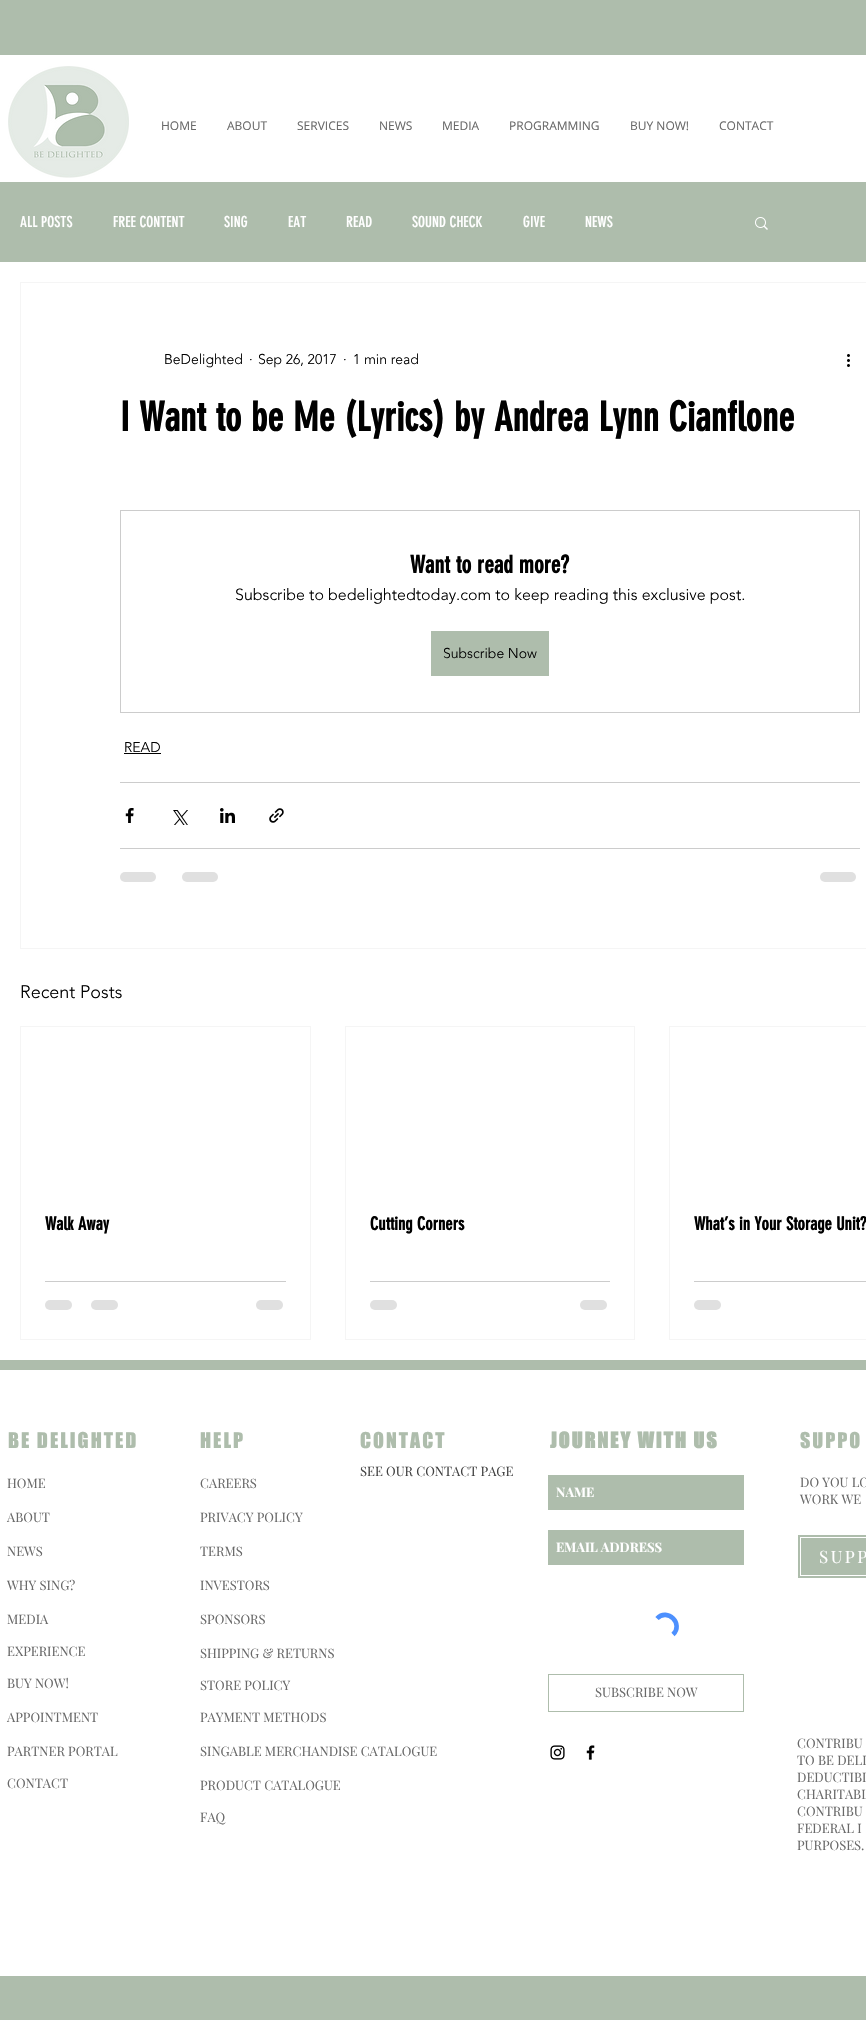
void draw(SkCanvas* canvas) {
    SkPaint paint;
    paint.setAntiAlias(true);
    auto face = [&](const char* family, int weight, float size, bool italic = false) {
        SkFontStyle style(weight, SkFontStyle::kNormal_Width,
            italic ? SkFontStyle::kItalic_Slant : SkFontStyle::kUpright_Slant);
        SkFont result(fontMgr->matchFamilyStyle(family, style), size);
        result.setSubpixel(true);
        return result;
    };
    auto write = [&](const char* s, float x, float y, const SkFont& font, SkColor color) {
        SkPaint ink(SkColor4f::FromColor(color));
        ink.setAntiAlias(true);
        canvas->drawString(s, x, y, font, ink);
    };
    auto writeSpaced = [&](const char* s, float x, float y, const SkFont& font, const SkPaint& ink, float letter, float word) {
        std::vector<SkGlyphID> glyphs(font.countText(s, strlen(s), SkTextEncoding::kUTF8));
        std::vector<float> xs(glyphs.size());
        font.textToGlyphs(s, strlen(s), SkTextEncoding::kUTF8, glyphs);
        font.getXPos(glyphs, xs, x);
        float extra = 0;
        for (size_t i = 0; i < glyphs.size(); i++) {
            xs[i] += extra;
            extra += letter + word * (glyphs[i] == font.unicharToGlyph(' '));
        }
        canvas->drawTextBlob(SkTextBlob::MakeFromPosHGlyphs(glyphs, xs, y, font), 0, 0, ink);
    };
    auto block = [&](float x, float y, float w, float h, SkColor color) {
        SkPaint ink(SkColor4f::FromColor(color));
        ink.setAntiAlias(true);
        canvas->drawRect(SkRect::MakeXYWH(x, y, w, h), ink);
    };
    auto card = [&](float x, float y, float w, float h, float radius, SkColor color) {
        SkPaint ink(SkColor4f::FromColor(color));
        ink.setAntiAlias(true);
        canvas->drawRoundRect(SkRect::MakeXYWH(x, y, w, h), radius, radius, ink);
    };
    auto paste = [&](const char* path, float x, float y, float w, float h) {
        auto image = SkImages::DeferredFromEncodedData(SkData::MakeFromFileName(path));
        canvas->drawImageRect(image, SkRect::MakeXYWH(x, y, w, h), SkSamplingOptions());
    };
    canvas->clear(SkColorSetRGB(174, 189, 172));
    block(0, 55, 866, 127, SK_ColorWHITE);
    paste("pic1.png", 8, 66, 121, 112);
    auto kFont1 = face("Open Sans", 400, 12);
    write("HOME", 161, 130, kFont1, SkColorSetRGB(105, 105, 105));
    write("ABOUT", 227, 130, kFont1, SkColorSetRGB(105, 105, 105));
    write("SERVICES", 297, 130, kFont1, SkColorSetRGB(105, 105, 105));
    write("NEWS", 379, 130, kFont1, SkColorSetRGB(105, 105, 105));
    write("MEDIA", 442, 130, kFont1, SkColorSetRGB(105, 105, 105));
    write("PROGRAMMING", 509, 130, kFont1, SkColorSetRGB(105, 105, 105));
    write("BUY NOW!", 630, 130, kFont1, SkColorSetRGB(105, 105, 105));
    write("CONTACT", 719, 130, kFont1, SkColorSetRGB(105, 105, 105));
    block(0, 262, 866, 1098, SK_ColorWHITE);
    auto kFont2 = face("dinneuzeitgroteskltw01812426", 400, 15);
    write("ALL POSTS", 20, 227, kFont2, SK_ColorWHITE);
    write("FREE CONTENT", 113, 227, kFont2, SK_ColorWHITE);
    write("SING", 224, 227, kFont2, SK_ColorWHITE);
    write("EAT", 288, 227, kFont2, SK_ColorWHITE);
    write("READ", 346, 227, kFont2, SK_ColorWHITE);
    write("SOUND CHECK", 412, 227, kFont2, SK_ColorWHITE);
    write("GIVE", 523, 227, kFont2, SK_ColorWHITE);
    write("NEWS", 585, 227, kFont2, SK_ColorWHITE);
    paste("pic2.png", 755, 217, 13, 13);
    paint.setStyle(SkPaint::kStroke_Style);
    paint.setStrokeWidth(1);
    paint.setColor(SkColorSetRGB(245, 245, 245));
    canvas->drawRect(SkRect::MakeXYWH(20.5f, 282.5f, 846, 666), paint);
    auto kFont3 = face("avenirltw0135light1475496", 300, 14);
    write("BeDelighted", 164, 364, kFont3, SK_ColorBLACK);
    write("·", 249, 364, kFont3, SK_ColorBLACK);
    write("Sep 26, 2017", 258, 364, kFont3, SK_ColorBLACK);
    write("·", 343, 364, kFont3, SK_ColorBLACK);
    write("1 min read", 353, 364, kFont3, SK_ColorBLACK);
    paste("pic3.png", 847, 354, 3, 13);
    auto kFont4 = face("dinneuzeitgroteskltw01812426", 700, 40);
    write("I Want to be Me (Lyrics) by Andrea Lynn Cianflone", 120, 431, kFont4, SK_ColorBLACK);
    paint.setColor(SkColorSetRGB(204, 204, 204));
    canvas->drawRect(SkRect::MakeXYWH(120.5f, 510.5f, 739, 202), paint);
    auto kFont5 = face("dinneuzeitgroteskltw01812426", 700, 24);
    write("Want to read more?", 410, 573, kFont5, SK_ColorBLACK);
    auto kFont6 = face("avenirltw0135light1475496", 300, 16);
    write("Subscribe to bedelightedtoday.com to keep reading this exclusive post.", 235, 600, kFont6, SK_ColorBLACK);
    block(431, 631, 118, 45, SkColorSetRGB(174, 189, 172));
    write("Subscribe Now", 443, 658, kFont3, SK_ColorBLACK);
    write("READ", 124, 752, kFont3, SK_ColorBLACK);
    block(124, 753, 37, 1, SK_ColorBLACK);
    block(120, 782, 740, 1, SkColorSetRGB(204, 204, 204));
    paste("pic4.png", 125, 808, 9, 15);
    paste("pic5.png", 173, 810, 15, 15);
    paste("pic6.png", 220, 808, 15, 15);
    paste("pic7.png", 269, 808, 15, 15);
    block(120, 848, 740, 1, SkColorSetRGB(204, 204, 204));
    card(120, 872, 36, 10, 5, SkColorSetRGB(224, 224, 224));
    card(182, 872, 36, 10, 5, SkColorSetRGB(224, 224, 224));
    card(820, 872, 36, 10, 5, SkColorSetRGB(224, 224, 224));
    auto kFont7 = face("avenirltw0135light1475496", 300, 18);
    write("Recent Posts", 20, 998, kFont7, SK_ColorBLACK);
    paint.setColor(SkColorSetRGB(245, 245, 245));
    canvas->drawRect(SkRect::MakeXYWH(20.5f, 1026.5f, 290, 313), paint);
    auto kFont8 = face("dinneuzeitgroteskltw01812426", 700, 18);
    write("Walk Away", 45, 1230, kFont8, SK_ColorBLACK);
    block(45, 1281, 241, 1, SkColorSetRGB(204, 204, 204));
    card(45, 1300, 27, 10, 5, SkColorSetRGB(224, 224, 224));
    card(91, 1300, 27, 10, 5, SkColorSetRGB(224, 224, 224));
    card(256, 1300, 27, 10, 5, SkColorSetRGB(224, 224, 224));
    canvas->drawRect(SkRect::MakeXYWH(345.5f, 1026.5f, 289, 313), paint);
    write("Cutting Corners", 370, 1230, kFont8, SK_ColorBLACK);
    block(370, 1281, 240, 1, SkColorSetRGB(204, 204, 204));
    card(370, 1300, 27, 10, 5, SkColorSetRGB(224, 224, 224));
    card(580, 1300, 27, 10, 5, SkColorSetRGB(224, 224, 224));
    canvas->drawRect(SkRect::MakeXYWH(669.5f, 1026.5f, 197, 313), paint);
    write("What’s in Your Storage Unit?", 694, 1230, kFont8, SK_ColorBLACK);
    block(694, 1281, 172, 1, SkColorSetRGB(204, 204, 204));
    card(694, 1300, 27, 10, 5, SkColorSetRGB(224, 224, 224));
    block(0, 1370, 866, 606, SK_ColorWHITE);
    auto kFont9 = face("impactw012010", 400, 20);
    paint.setStyle(SkPaint::kFill_Style);
    paint.setColor(SkColorSetRGB(174, 189, 172));
    writeSpaced("BE DELIGHTED", 8, 1448, kFont9, paint, 2, 0);
    writeSpaced("HELP", 200, 1448, kFont9, paint, 2, 0);
    writeSpaced("CONTACT", 360, 1448, kFont9, paint, 2, 0);
    auto kFont10 = face("impactw012010", 700, 20);
    writeSpaced("JOURNEY WITH US", 550, 1448, kFont10, paint, 2, 0);
    block(548, 1475, 196, 35, SkColorSetRGB(174, 189, 172));
    auto kFont11 = face("Playfair Display", 700, 13);
    write("NAME", 556, 1497, kFont11, SK_ColorWHITE);
    block(548, 1530, 196, 35, SkColorSetRGB(174, 189, 172));
    write("EMAIL ADDRESS", 556, 1552, kFont11, SK_ColorWHITE);
    paint.setStyle(SkPaint::kStroke_Style);
    paint.setStrokeWidth(4.6f);
    paint.setColor(SkColorSetRGB(77, 144, 254));
    canvas->drawPath(SkPathBuilder().moveTo(657, 1618.5f).cubicTo(667.5f, 1607.5f, 684, 1624, 673, 1634.5f).detach(), paint);
    paint.setStrokeWidth(1);
    paint.setColor(SkColorSetRGB(174, 189, 172));
    canvas->drawRect(SkRect::MakeXYWH(548.5f, 1674.5f, 195, 37), paint);
    auto kFont12 = face("Playfair Display", 400, 13);
    write("SUBSCRIBE NOW", 595, 1697, kFont12, SkColorSetRGB(105, 105, 105));
    paste("pic8.png", 550, 1745, 15, 15);
    paste("pic9.png", 586, 1745, 9, 15);
    paint.setStyle(SkPaint::kFill_Style);
    writeSpaced("SUPPO", 800, 1448, kFont9, paint, 2, 0);
    write("SEE OUR CONTACT PAGE", 360, 1476, kFont12, SkColorSetRGB(66, 66, 66));
    write("HOME", 7, 1488, kFont12, SkColorSetRGB(105, 105, 105));
    write("ABOUT", 7, 1522, kFont12, SkColorSetRGB(105, 105, 105));
    write("NEWS", 7, 1556, kFont12, SkColorSetRGB(105, 105, 105));
    write("WHY SING?", 7, 1590, kFont12, SkColorSetRGB(105, 105, 105));
    write("MEDIA", 7, 1624, kFont12, SkColorSetRGB(105, 105, 105));
    write("EXPERIENCE", 7, 1656, kFont12, SkColorSetRGB(105, 105, 105));
    write("BUY NOW!", 7, 1688, kFont12, SkColorSetRGB(105, 105, 105));
    write("APPOINTMENT", 7, 1722, kFont12, SkColorSetRGB(105, 105, 105));
    write("PARTNER PORTAL", 7, 1756, kFont12, SkColorSetRGB(105, 105, 105));
    write("CONTACT", 7, 1788, kFont12, SkColorSetRGB(105, 105, 105));
    write("CAREERS", 200, 1488, kFont12, SkColorSetRGB(105, 105, 105));
    write("PRIVACY POLICY", 200, 1522, kFont12, SkColorSetRGB(105, 105, 105));
    write("TERMS", 200, 1556, kFont12, SkColorSetRGB(105, 105, 105));
    write("INVESTORS", 200, 1590, kFont12, SkColorSetRGB(105, 105, 105));
    write("SPONSORS", 200, 1624, kFont12, SkColorSetRGB(105, 105, 105));
    write("SHIPPING & RETURNS", 200, 1658, kFont12, SkColorSetRGB(105, 105, 105));
    write("STORE POLICY", 200, 1690, kFont12, SkColorSetRGB(105, 105, 105));
    write("PAYMENT METHODS", 200, 1722, kFont12, SkColorSetRGB(105, 105, 105));
    write("SINGABLE MERCHANDISE CATALOGUE", 200, 1756, kFont12, SkColorSetRGB(105, 105, 105));
    write("PRODUCT CATALOGUE", 200, 1790, kFont12, SkColorSetRGB(105, 105, 105));
    write("FAQ", 200, 1822, kFont12, SkColorSetRGB(105, 105, 105));
    write("DO YOU LO", 800, 1487, kFont12, SkColorSetRGB(105, 105, 105));
    write("WORK WE", 800, 1504, kFont12, SkColorSetRGB(105, 105, 105));
    block(798, 1535, 68, 43, SkColorSetRGB(174, 189, 172));
    paint.setStyle(SkPaint::kStroke_Style);
    paint.setColor(SK_ColorWHITE);
    canvas->drawRect(SkRect::MakeXYWH(800.5f, 1537.5f, 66, 38), paint);
    auto kFont13 = face("Playfair Display", 400, 17);
    paint.setStyle(SkPaint::kFill_Style);
    writeSpaced("SUPP", 819, 1563, kFont13, paint, 2.5f, 0);
    write("CONTRIBU", 797, 1748, kFont12, SkColorSetRGB(105, 105, 105));
    write("TO BE DELI", 797, 1765, kFont12, SkColorSetRGB(105, 105, 105));
    write("DEDUCTIBL", 797, 1782, kFont12, SkColorSetRGB(105, 105, 105));
    write("CHARITABL", 797, 1799, kFont12, SkColorSetRGB(105, 105, 105));
    write("CONTRIBU", 797, 1816, kFont12, SkColorSetRGB(105, 105, 105));
    write("FEDERAL I", 797, 1833, kFont12, SkColorSetRGB(105, 105, 105));
    write("PURPOSES.", 797, 1850, kFont12, SkColorSetRGB(105, 105, 105));
}
